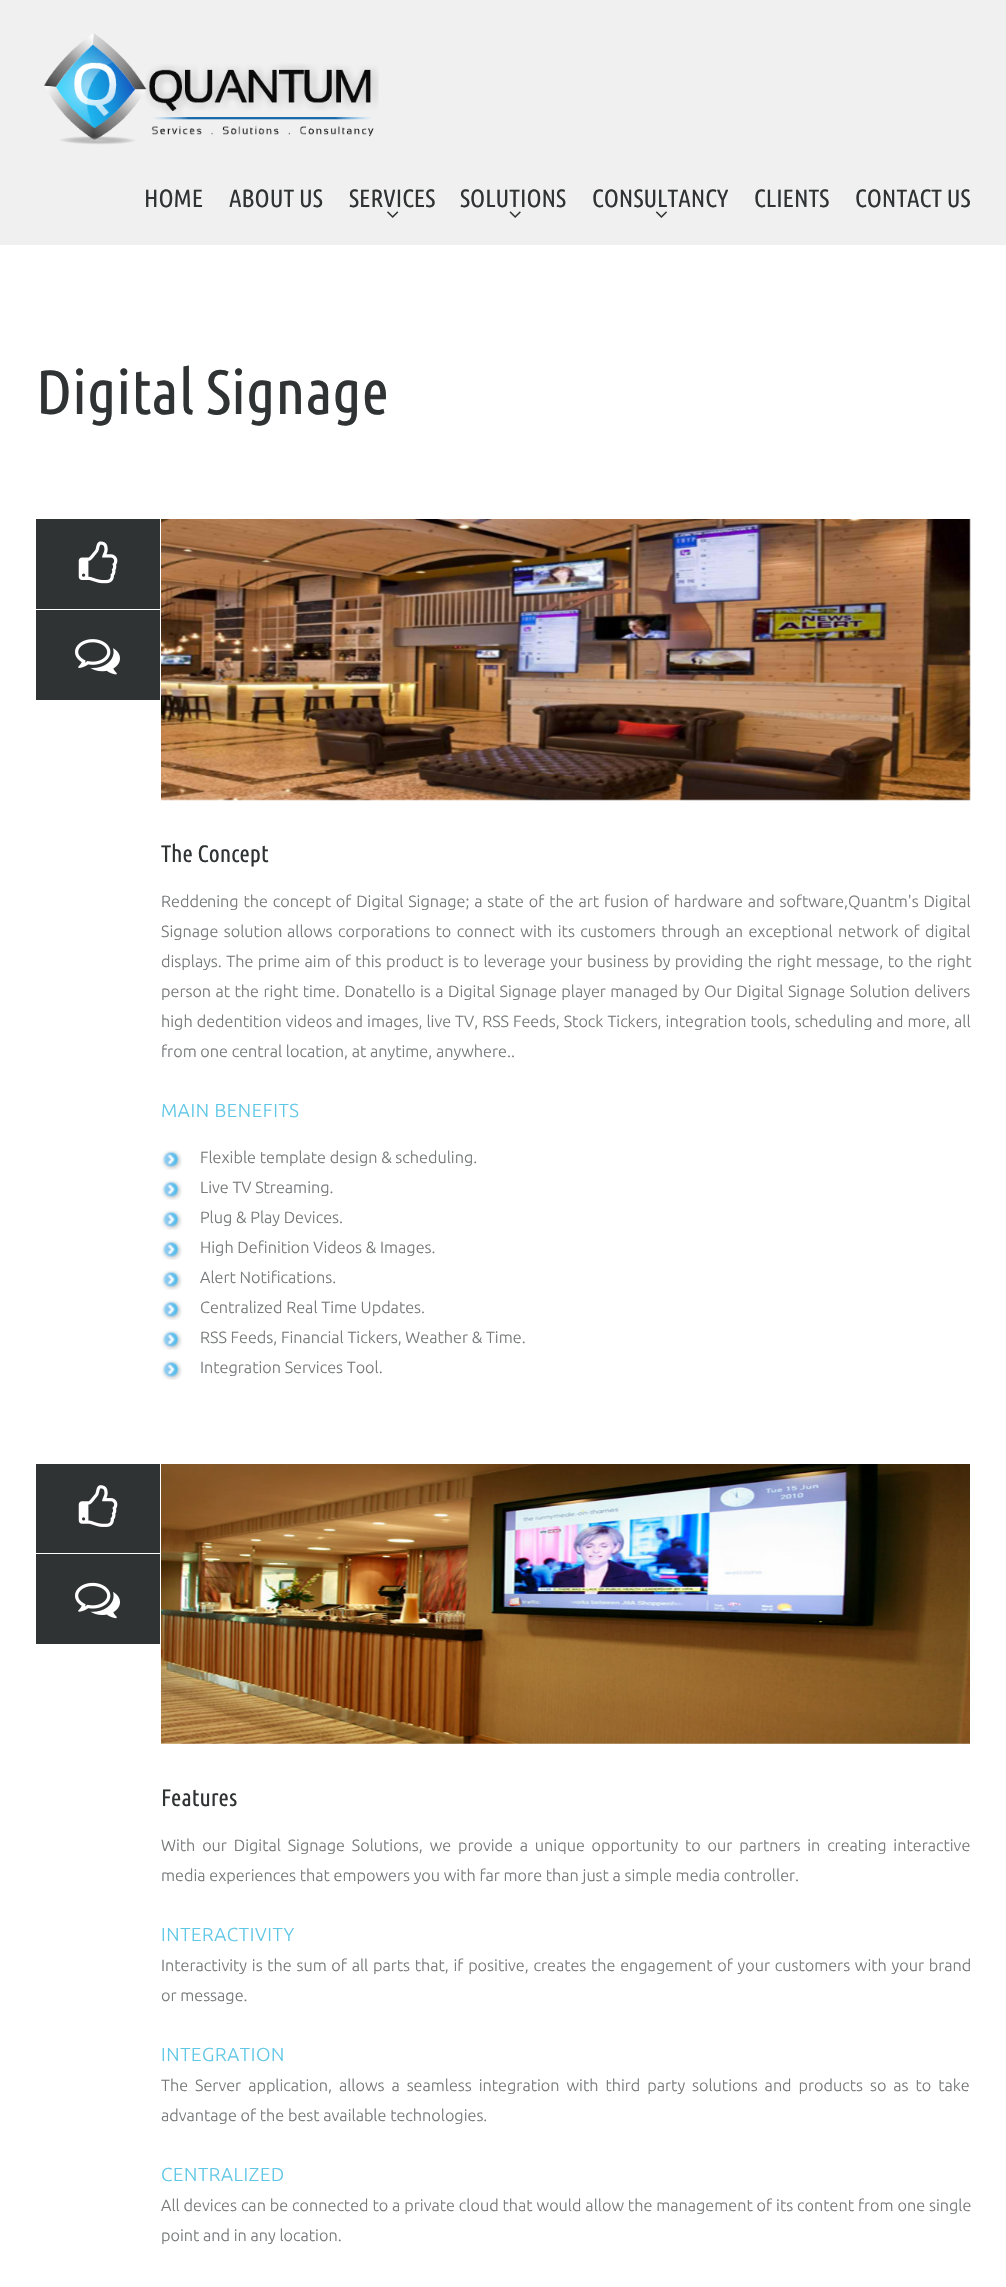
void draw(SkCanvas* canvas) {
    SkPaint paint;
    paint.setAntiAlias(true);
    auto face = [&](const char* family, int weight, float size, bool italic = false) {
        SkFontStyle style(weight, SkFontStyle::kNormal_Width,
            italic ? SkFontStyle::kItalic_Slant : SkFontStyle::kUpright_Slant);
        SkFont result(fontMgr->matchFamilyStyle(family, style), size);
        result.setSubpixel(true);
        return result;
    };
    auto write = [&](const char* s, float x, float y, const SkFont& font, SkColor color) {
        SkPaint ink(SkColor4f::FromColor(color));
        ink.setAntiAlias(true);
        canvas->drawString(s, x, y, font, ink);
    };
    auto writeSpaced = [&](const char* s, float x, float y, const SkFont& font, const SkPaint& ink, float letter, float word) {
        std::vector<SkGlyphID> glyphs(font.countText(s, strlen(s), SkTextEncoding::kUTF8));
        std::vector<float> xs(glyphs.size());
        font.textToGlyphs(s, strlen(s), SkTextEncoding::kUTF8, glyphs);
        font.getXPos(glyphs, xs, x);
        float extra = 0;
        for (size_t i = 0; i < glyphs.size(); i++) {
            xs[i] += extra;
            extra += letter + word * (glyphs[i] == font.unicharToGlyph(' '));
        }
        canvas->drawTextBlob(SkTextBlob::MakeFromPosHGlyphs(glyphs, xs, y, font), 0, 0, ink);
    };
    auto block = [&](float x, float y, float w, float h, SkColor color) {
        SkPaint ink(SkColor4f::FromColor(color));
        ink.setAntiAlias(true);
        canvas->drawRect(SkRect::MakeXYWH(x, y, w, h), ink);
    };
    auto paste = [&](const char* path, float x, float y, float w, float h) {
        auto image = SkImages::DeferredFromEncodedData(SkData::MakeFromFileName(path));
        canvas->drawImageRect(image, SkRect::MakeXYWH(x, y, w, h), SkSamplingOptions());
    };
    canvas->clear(SK_ColorWHITE);
    block(0, 0, 1006, 245, SkColorSetRGB(240, 240, 240));
    paste("pic1.png", 44, 33, 335, 112);
    auto kFont1 = face("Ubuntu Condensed", 400, 25);
    write("HOME", 144, 207, kFont1, SkColorSetRGB(48, 51, 52));
    write("ABOUT US", 229, 207, kFont1, SkColorSetRGB(48, 51, 52));
    write("SERVICES", 349, 207, kFont1, SkColorSetRGB(48, 51, 52));
    paste("pic2.png", 387, 211, 12, 7);
    write("SOLUTIONS", 460, 207, kFont1, SkColorSetRGB(48, 51, 52));
    paste("pic3.png", 509, 211, 12, 7);
    write("CONSULTANCY", 592, 207, kFont1, SkColorSetRGB(48, 51, 52));
    paste("pic4.png", 655, 211, 12, 7);
    write("CLIENTS", 754, 207, kFont1, SkColorSetRGB(48, 51, 52));
    write("CONTACT US", 855, 207, kFont1, SkColorSetRGB(48, 51, 52));
    auto kFont2 = face("Ubuntu Condensed", 400, 62.5f);
    write("Digital Signage", 36, 414, kFont2, SkColorSetRGB(48, 51, 52));
    block(36, 519, 124, 90, SkColorSetRGB(48, 51, 52));
    paste("pic5.png", 78, 541, 40, 43);
    block(36, 610, 124, 90, SkColorSetRGB(48, 51, 52));
    paste("pic6.png", 75, 639, 45, 36);
    paste("pic7.png", 161, 519, 810, 282);
    auto kFont3 = face("Ubuntu Condensed", 400, 23.75f);
    write("The Concept", 161, 862, kFont3, SkColorSetRGB(48, 51, 52));
    auto kFont4 = face("Ubuntu", 300, 16.25f);
    write("Redde", 161, 907, kFont4, SkColorSetRGB(118, 120, 121));
    paint.setColor(SkColorSetRGB(118, 120, 121));
    writeSpaced("ning the concept of Digital Signage; a state of the art fusion of hardware and software,Quantm's Digital", 207, 907, kFont4, paint, 0, 1.1f);
    writeSpaced("Signage solution", 161, 937, kFont4, paint, 0, 1.75f);
    writeSpaced("allows corporations to connect with its customers through an exceptional network of digital", 287, 937, kFont4, paint, 0, 1.75f);
    writeSpaced("displays. The prime aim of this product is to leverage your business by providing the right message, to the right", 161, 967, kFont4, paint, 0, 0.75f);
    writeSpaced("person at the right time. Donatello is a Digital Signage player managed by Our Digital Signage Solution delivers", 161, 997, kFont4, paint, 0, 0.75f);
    writeSpaced("high dedentition videos and images, live TV, RSS Feeds, Stock Tickers, integration tools, scheduling and more, all", 161, 1027, kFont4, paint, 0, 0.3f);
    write("from one central location, at anytime, anywhere..", 161, 1057, kFont4, SkColorSetRGB(118, 120, 121));
    auto kFont5 = face("Ubuntu", 300, 18.75f);
    paint.setColor(SkColorSetRGB(95, 199, 230));
    writeSpaced("MAIN BENEFITS", 161, 1117, kFont5, paint, 0.6f, 0);
    paste("pic8.png", 161, 1150, 21, 20);
    write("Flexible template design & scheduling.", 200, 1163, kFont4, SkColorSetRGB(118, 120, 121));
    paste("pic8.png", 161, 1180, 21, 20);
    write("Live TV Streaming.", 200, 1193, kFont4, SkColorSetRGB(118, 120, 121));
    paste("pic8.png", 161, 1210, 21, 20);
    write("Plug & Play Devices.", 200, 1223, kFont4, SkColorSetRGB(118, 120, 121));
    paste("pic8.png", 161, 1240, 21, 20);
    write("High Definition Videos & Images.", 200, 1253, kFont4, SkColorSetRGB(118, 120, 121));
    paste("pic9.png", 161, 1270, 21, 20);
    write("Alert Notifications.", 200, 1283, kFont4, SkColorSetRGB(118, 120, 121));
    paste("pic10.png", 161, 1300, 21, 20);
    write("Centralized Real Time Updates.", 200, 1313, kFont4, SkColorSetRGB(118, 120, 121));
    paste("pic8.png", 161, 1330, 21, 20);
    write("RSS Feeds, Financial Tickers, Weather & Time.", 200, 1343, kFont4, SkColorSetRGB(118, 120, 121));
    paste("pic8.png", 161, 1360, 21, 20);
    write("Integration Services Tool.", 200, 1373, kFont4, SkColorSetRGB(118, 120, 121));
    block(36, 1464, 124, 89, SkColorSetRGB(48, 51, 52));
    paste("pic11.png", 78, 1485, 40, 42);
    block(36, 1554, 124, 90, SkColorSetRGB(48, 51, 52));
    paste("pic12.png", 75, 1582, 45, 37);
    paste("pic13.png", 161, 1464, 809, 280);
    write("Features", 161, 1806, kFont3, SkColorSetRGB(48, 51, 52));
    paint.setColor(SkColorSetRGB(118, 120, 121));
    writeSpaced("With our Digital Signage Solutions, we provide a unique opportunity to our partners in creating interactive", 161, 1851, kFont4, paint, 0, 3.1f);
    write("media experiences that empowers you with far more than just a simple media controller.", 161, 1881, kFont4, SkColorSetRGB(118, 120, 121));
    paint.setColor(SkColorSetRGB(95, 199, 230));
    writeSpaced("INTERACTIVITY", 161, 1941, kFont5, paint, 0.6f, 0);
    paint.setColor(SkColorSetRGB(118, 120, 121));
    writeSpaced("Interactivity is the sum of all parts that, if positive, creates the engagement of your customers with your brand", 161, 1971, kFont4, paint, 0, 1);
    write("or message.", 161, 2001, kFont4, SkColorSetRGB(118, 120, 121));
    paint.setColor(SkColorSetRGB(95, 199, 230));
    writeSpaced("INTEGRATION", 161, 2061, kFont5, paint, 0.6f, 0);
    paint.setColor(SkColorSetRGB(118, 120, 121));
    writeSpaced("The Server application, allows a seamless integration with third party solutions and products so as to take", 161, 2091, kFont4, paint, 0, 3.25f);
    write("advantage of the best available technologies.", 161, 2121, kFont4, SkColorSetRGB(118, 120, 121));
    paint.setColor(SkColorSetRGB(95, 199, 230));
    writeSpaced("CENTRALIZED", 161, 2181, kFont5, paint, 0.6f, 0);
    paint.setColor(SkColorSetRGB(118, 120, 121));
    writeSpaced("All devices can be connected to a private cloud that would allow the management of its content from one single", 161, 2211, kFont4, paint, 0, 0.2f);
    write("point and in any location.", 161, 2241, kFont4, SkColorSetRGB(118, 120, 121));
}
